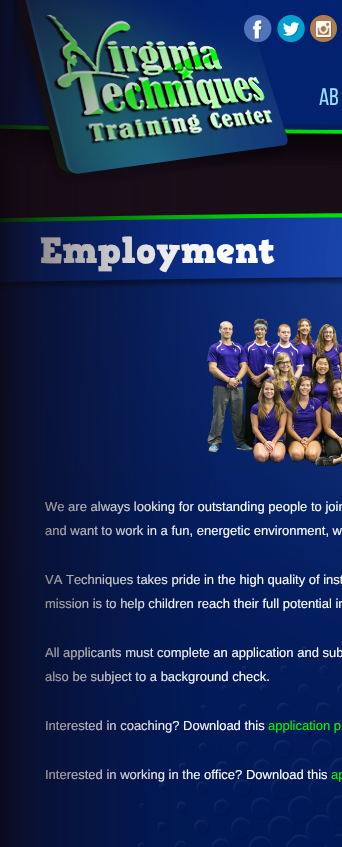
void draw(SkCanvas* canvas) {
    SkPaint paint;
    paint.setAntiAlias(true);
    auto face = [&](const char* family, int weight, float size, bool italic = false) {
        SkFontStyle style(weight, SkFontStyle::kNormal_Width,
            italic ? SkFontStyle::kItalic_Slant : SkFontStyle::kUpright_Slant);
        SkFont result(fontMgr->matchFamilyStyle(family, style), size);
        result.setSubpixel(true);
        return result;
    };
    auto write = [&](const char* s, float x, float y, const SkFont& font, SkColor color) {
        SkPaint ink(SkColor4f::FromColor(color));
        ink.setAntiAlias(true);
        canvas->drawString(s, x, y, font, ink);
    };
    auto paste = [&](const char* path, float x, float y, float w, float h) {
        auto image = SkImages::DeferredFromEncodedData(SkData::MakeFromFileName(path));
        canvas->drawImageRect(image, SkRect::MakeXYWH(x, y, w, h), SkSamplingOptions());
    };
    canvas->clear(SkColorSetRGB(25, 13, 24));
    paste("pic1.png", 0, 0, 342, 165);
    paste("pic2.png", 5, 0, 283, 184);
    paste("pic3.png", 43, 15, 230, 129);
    paste("pic7.png", 0, 212, 342, 635);
    auto kFont1 = face("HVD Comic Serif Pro", 400, 36);
    write("Employment", 39, 263, kFont1, SK_ColorWHITE);
    canvas->save();
    canvas->clipPath(SkPathBuilder(SkPathFillType::kEvenOdd).moveTo(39, 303).lineTo(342, 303).lineTo(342, 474).lineTo(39, 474).close().moveTo(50, 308).lineTo(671, 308).cubicTo(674, 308, 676, 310, 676, 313).lineTo(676, 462).cubicTo(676, 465, 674, 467, 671, 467).lineTo(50, 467).cubicTo(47, 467, 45, 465, 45, 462).lineTo(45, 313).cubicTo(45, 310, 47, 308, 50, 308).close().detach(), true);
    paint.setColor(SkColorSetARGB(56, 32, 29, 29));
    paint.setMaskFilter(SkMaskFilter::MakeBlur(kNormal_SkBlurStyle, 1.5f));
    canvas->drawRoundRect(SkRect::MakeXYWH(45, 309, 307, 159), 5, 5, paint);
    paint.setMaskFilter(nullptr);
    canvas->restore();
    paste("pic8.png", 207, 318, 135, 149);
    auto kFont2 = face("Liberation Sans", 400, 13);
    write("We are always looking for outstanding people to join", 45, 511, kFont2, SK_ColorWHITE);
    write("and want to work in a fun, energetic environment, w", 45, 535, kFont2, SK_ColorWHITE);
    write("VA Techniques takes pride in the high quality of inst", 45, 584, kFont2, SK_ColorWHITE);
    write("mission is to help children reach their full potential in", 45, 608, kFont2, SK_ColorWHITE);
    write("All applicants must complete an application and sub", 45, 657, kFont2, SK_ColorWHITE);
    write("also be subject to a background check.", 45, 681, kFont2, SK_ColorWHITE);
    write("Interested in coaching? Download this", 45, 730, kFont2, SK_ColorWHITE);
    write("Interested in working in the office? Download this", 45, 779, kFont2, SK_ColorWHITE);
    {
        const SkColor colors[] = {SkColorSetARGB(199, 13, 6, 13), SkColorSetARGB(156, 17, 8, 17), SkColorSetARGB(128, 16, 8, 15), SkColorSetARGB(117, 16, 8, 15), SkColorSetARGB(84, 19, 9, 18), SkColorSetARGB(54, 21, 9, 20), SkColorSetARGB(23, 22, 10, 21), SkColorSetARGB(0, 22, 10, 21)};
        const float stops[] = {0, 0.09f, 0.15f, 0.17f, 0.34f, 0.51f, 0.69f, 1};
        const SkPoint ends[] = {{0, 659}, {230, 659}};
        paint.setShader(SkGradientShader::MakeLinear(ends, colors, stops, 8, SkTileMode::kClamp));
        paint.setAlpha(255);
    }
    canvas->drawRect(SkRect::MakeXYWH(0, 0, 213, 847), paint);
    paste("pic4.png", 244, 15, 28, 28);
    paste("pic5.png", 277, 15, 28, 28);
    paste("pic6.png", 310, 15, 27, 27);
    auto kFont3 = face("Bebas Neue", 400, 24);
    write("Ab", 319, 105, kFont3, SkColorSetRGB(153, 223, 255));
    write("application p", 268, 730, kFont2, SkColorSetRGB(0, 249, 0));
    write("ap", 331, 779, kFont2, SkColorSetRGB(0, 249, 0));
}
